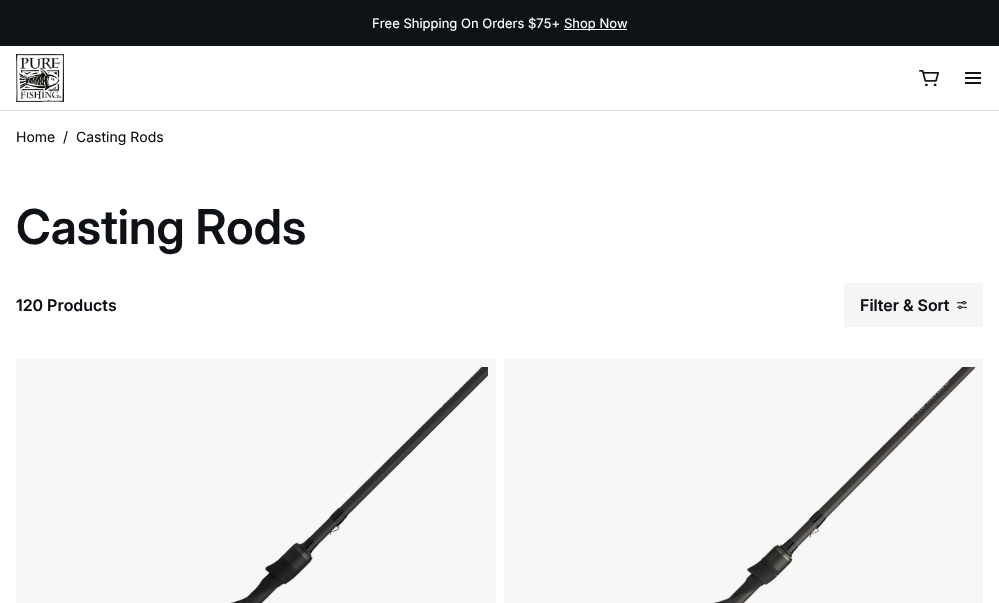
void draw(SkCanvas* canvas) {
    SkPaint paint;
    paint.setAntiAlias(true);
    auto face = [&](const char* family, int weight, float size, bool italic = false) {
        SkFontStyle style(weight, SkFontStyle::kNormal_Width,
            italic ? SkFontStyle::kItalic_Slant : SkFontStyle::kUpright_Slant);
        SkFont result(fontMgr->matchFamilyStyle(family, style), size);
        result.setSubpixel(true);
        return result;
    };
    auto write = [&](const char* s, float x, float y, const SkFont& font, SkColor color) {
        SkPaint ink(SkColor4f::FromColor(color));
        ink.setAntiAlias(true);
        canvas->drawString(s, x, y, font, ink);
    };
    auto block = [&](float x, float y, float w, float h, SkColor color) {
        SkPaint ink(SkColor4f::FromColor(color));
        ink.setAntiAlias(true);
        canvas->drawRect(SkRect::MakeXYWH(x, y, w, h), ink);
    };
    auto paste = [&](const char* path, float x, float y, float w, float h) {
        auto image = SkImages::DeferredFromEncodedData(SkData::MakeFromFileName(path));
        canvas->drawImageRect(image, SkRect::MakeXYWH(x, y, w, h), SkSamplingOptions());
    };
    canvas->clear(SK_ColorWHITE);
    block(504, 359, 479, 244, SkColorSetRGB(247, 247, 247));
    block(16, 359, 480, 244, SkColorSetRGB(247, 247, 247));
    block(0, 0, 999, 46, SkColorSetRGB(14, 17, 22));
    auto kFont1 = face("Inter", 400, 13);
    write("Free Shipping On Orders $75+", 372, 28, kFont1, SK_ColorWHITE);
    block(564, 29, 63, 1, SK_ColorWHITE);
    write("Shop Now", 564, 28, kFont1, SK_ColorWHITE);
    block(0, 110, 999, 1, SkColorSetRGB(224, 223, 230));
    paste("pic1.png", 16, 54, 48, 48);
    paste("pic2.png", 919, 70, 20, 16);
    block(965, 72, 16, 2, SkColorSetRGB(14, 17, 22));
    block(965, 77, 16, 2, SkColorSetRGB(14, 17, 22));
    block(965, 82, 16, 2, SkColorSetRGB(14, 17, 22));
    auto kFont2 = face("Inter", 400, 14);
    write("Home", 16, 142, kFont2, SkColorSetRGB(14, 17, 22));
    write("/", 63, 142, kFont2, SkColorSetRGB(14, 17, 22));
    write("Casting Rods", 76, 142, kFont2, SkColorSetRGB(14, 17, 22));
    auto kFont3 = face("Inter", 600, 48);
    write("Casting Rods", 16, 244, kFont3, SkColorSetRGB(14, 17, 22));
    auto kFont4 = face("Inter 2", 600, 16);
    write("120 Products", 16, 311, kFont4, SkColorSetRGB(14, 17, 22));
    block(844, 283, 139, 44, SkColorSetRGB(245, 245, 245));
    write("Filter & Sort", 860, 311, kFont4, SkColorSetRGB(14, 17, 22));
    paste("pic3.png", 957, 301, 10, 8);
    paste("pic4.png", 230, 367, 258, 236);
    paste("pic5.png", 714, 367, 261, 236);
}
